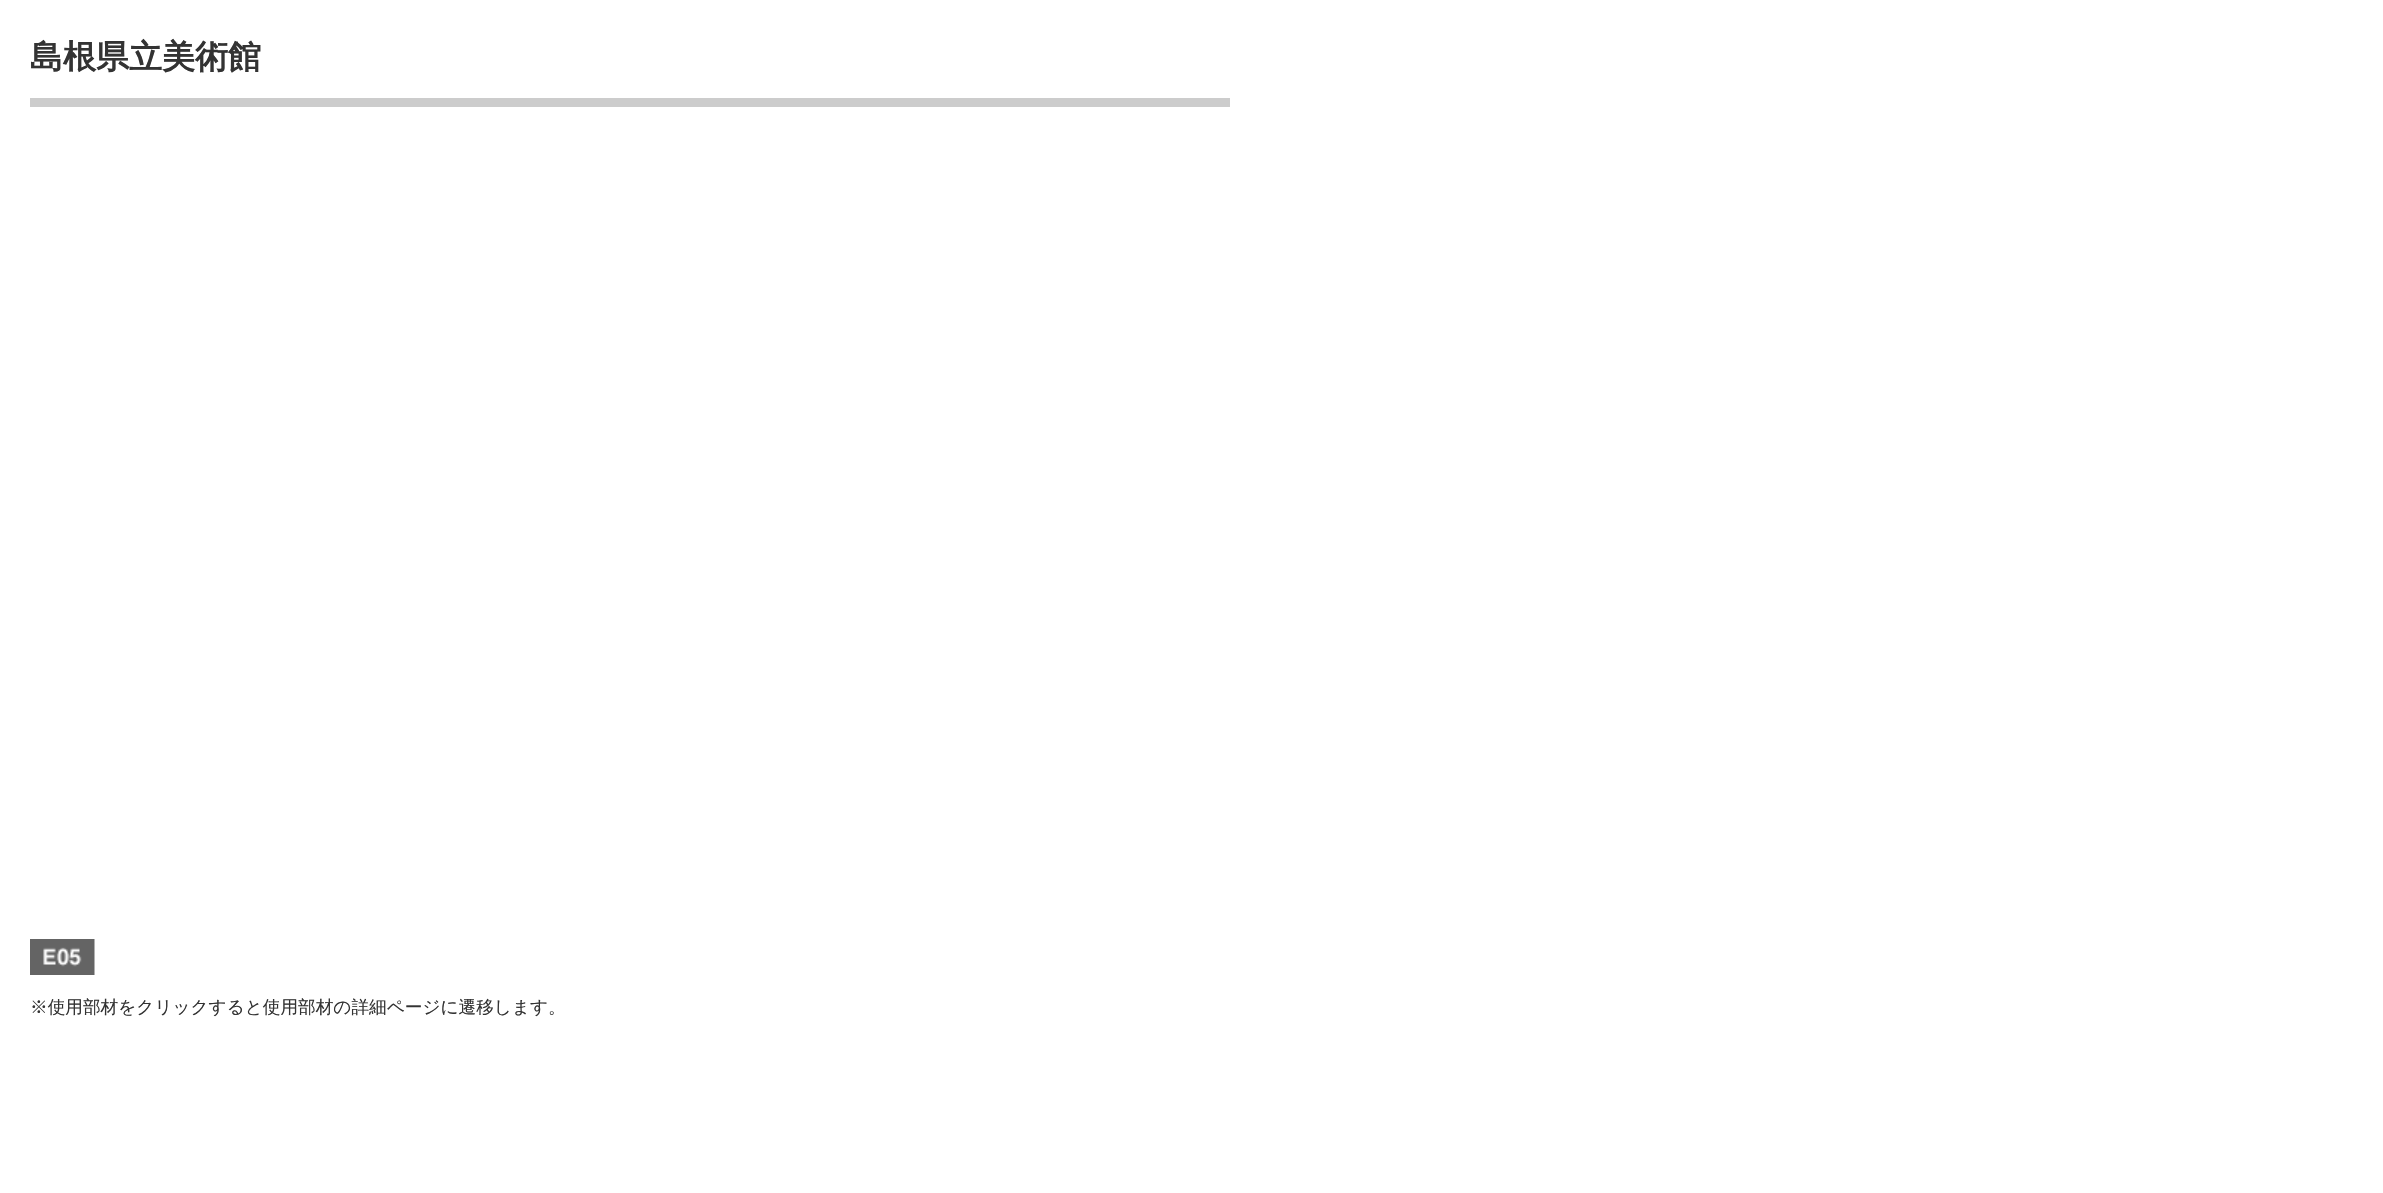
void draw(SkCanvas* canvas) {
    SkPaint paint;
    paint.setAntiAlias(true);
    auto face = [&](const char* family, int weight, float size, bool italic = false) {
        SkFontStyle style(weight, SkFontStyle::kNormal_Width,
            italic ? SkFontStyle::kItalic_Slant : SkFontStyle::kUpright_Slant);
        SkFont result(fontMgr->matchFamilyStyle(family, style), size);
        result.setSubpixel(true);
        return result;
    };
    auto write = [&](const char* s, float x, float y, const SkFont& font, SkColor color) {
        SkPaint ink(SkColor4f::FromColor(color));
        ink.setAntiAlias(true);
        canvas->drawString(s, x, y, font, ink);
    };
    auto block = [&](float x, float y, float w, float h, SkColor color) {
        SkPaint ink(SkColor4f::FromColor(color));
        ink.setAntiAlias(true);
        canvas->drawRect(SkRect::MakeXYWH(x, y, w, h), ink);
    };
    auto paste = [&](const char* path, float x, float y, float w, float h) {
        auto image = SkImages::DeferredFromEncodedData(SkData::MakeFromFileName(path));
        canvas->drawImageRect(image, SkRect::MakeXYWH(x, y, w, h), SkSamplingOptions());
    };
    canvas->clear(SK_ColorWHITE);
    block(30, 98, 1200, 9, SkColorSetRGB(204, 204, 204));
    auto kFont1 = face("WenQuanYi Zen Hei", 700, 33);
    write("島根県立美術館", 30, 68, kFont1, SkColorSetRGB(51, 51, 51));
    paste("pic1.png", 30, 939, 65, 36);
    auto kFont2 = face("WenQuanYi Zen Hei", 500, 17.65f);
    write("※使用部材をクリックすると使用部材の詳細ページに遷移します。", 30, 1013, kFont2, SkColorSetRGB(51, 51, 51));
}
